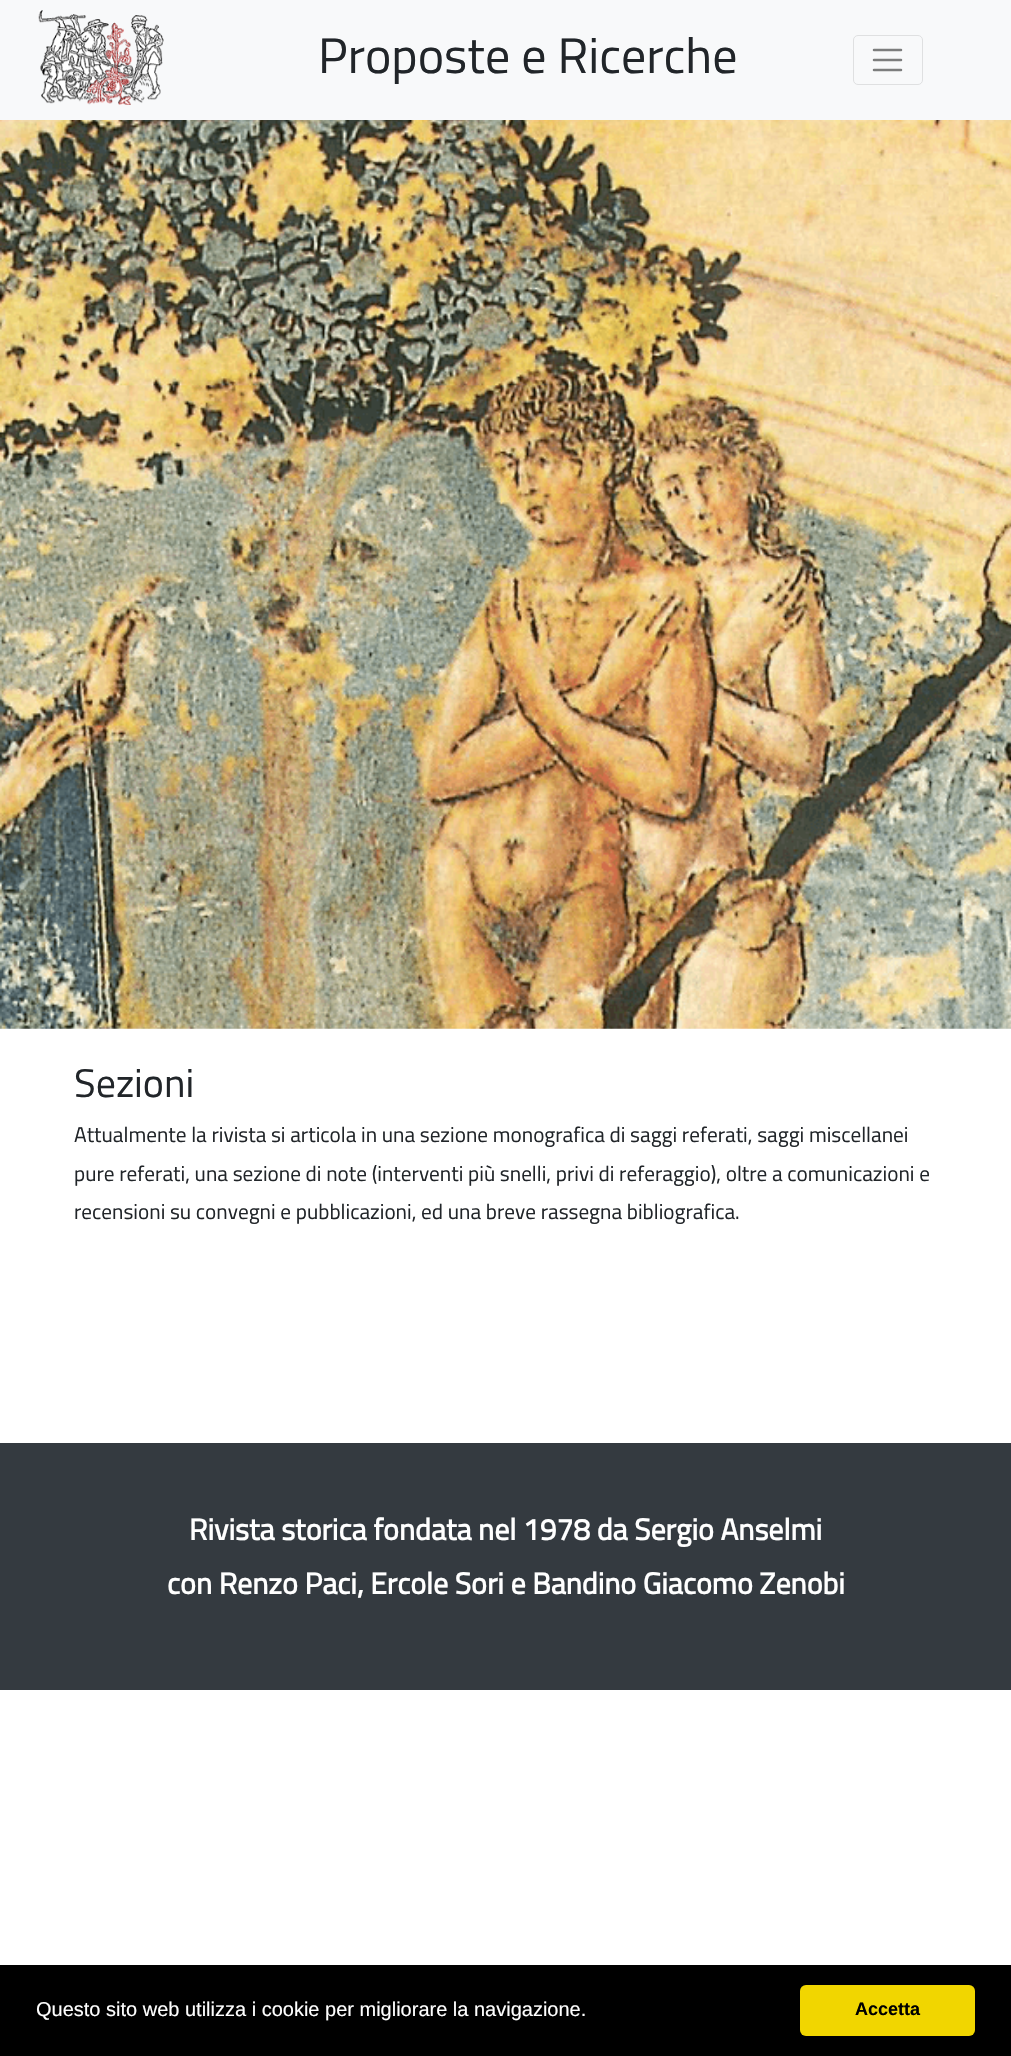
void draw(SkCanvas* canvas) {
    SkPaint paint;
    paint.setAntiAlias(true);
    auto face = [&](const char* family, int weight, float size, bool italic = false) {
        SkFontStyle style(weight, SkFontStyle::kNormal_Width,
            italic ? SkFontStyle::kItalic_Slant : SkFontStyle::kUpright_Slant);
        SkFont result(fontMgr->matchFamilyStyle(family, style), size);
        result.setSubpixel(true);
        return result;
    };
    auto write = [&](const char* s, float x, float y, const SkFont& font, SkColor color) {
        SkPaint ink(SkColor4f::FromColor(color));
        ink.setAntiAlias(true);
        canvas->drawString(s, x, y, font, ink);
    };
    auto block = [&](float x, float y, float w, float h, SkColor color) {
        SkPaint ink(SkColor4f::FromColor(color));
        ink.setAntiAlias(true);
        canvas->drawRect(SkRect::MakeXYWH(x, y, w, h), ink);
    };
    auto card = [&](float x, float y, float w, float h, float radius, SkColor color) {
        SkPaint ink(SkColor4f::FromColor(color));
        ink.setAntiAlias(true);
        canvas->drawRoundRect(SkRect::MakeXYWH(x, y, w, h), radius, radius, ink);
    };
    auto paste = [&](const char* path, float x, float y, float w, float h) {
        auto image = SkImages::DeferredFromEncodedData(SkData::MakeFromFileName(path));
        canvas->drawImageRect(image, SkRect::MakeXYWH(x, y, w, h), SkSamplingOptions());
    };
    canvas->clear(SK_ColorWHITE);
    block(0, 0, 1011, 120, SkColorSetRGB(248, 249, 250));
    paste("pic1.png", 38, 10, 126, 95);
    auto kFont1 = face("Titillium Web", 400, 50);
    write("Proposte e Ricerche", 318, 73, kFont1, SkColorSetRGB(33, 37, 41));
    paint.setStyle(SkPaint::kStroke_Style);
    paint.setStrokeWidth(1);
    paint.setColor(SkColorSetRGB(223, 224, 225));
    canvas->drawRoundRect(SkRect::MakeXYWH(853.5f, 35.5f, 69, 49), 4.5f, 4.5f, paint);
    paint.setStrokeWidth(2.5f);
    paint.setStrokeCap(SkPaint::kRound_Cap);
    paint.setColor(SkColorSetRGB(124, 125, 125));
    canvas->drawPath(SkPathBuilder().moveTo(874, 50).lineTo(901, 50).moveTo(874, 60).lineTo(901, 60).moveTo(874, 70).lineTo(901, 70).detach(), paint);
    paste("pic2.png", 0, 120, 1011, 909);
    auto kFont2 = face("Titillium Web", 400, 40);
    write("Sezioni", 74, 1097, kFont2, SkColorSetRGB(33, 37, 41));
    auto kFont3 = face("Titillium Web", 400, 21.25f);
    write("Attualmente la rivista si articola in una sezione monografica di saggi referati, saggi miscellanei", 74, 1142, kFont3, SkColorSetRGB(33, 37, 41));
    write("pure referati, una sezione di note (interventi più snelli, privi di referaggio), oltre a comunicazioni e", 74, 1181, kFont3, SkColorSetRGB(33, 37, 41));
    write("recensioni su convegni e pubblicazioni, ed una breve rassegna bibliografica.", 74, 1219, kFont3, SkColorSetRGB(33, 37, 41));
    block(0, 1443, 1011, 247, SkColorSetRGB(52, 58, 64));
    auto kFont4 = face("Titillium Web", 700, 30);
    write("Rivista storica fondata nel 1978 da Sergio Anselmi", 189, 1540, kFont4, SK_ColorWHITE);
    write("con Renzo Paci, Ercole Sori e Bandino Giacomo Zenobi", 167, 1594, kFont4, SK_ColorWHITE);
    block(0, 1965, 1011, 91, SK_ColorBLACK);
    auto kFont5 = face("Liberation Sans", 400, 20);
    write("Questo sito web utilizza i cookie per migliorare la navigazione.", 36, 2016, kFont5, SK_ColorWHITE);
    card(800, 1985, 175, 51, 6, SkColorSetRGB(241, 214, 0));
    auto kFont6 = face("Liberation Sans", 700, 18);
    write("Accetta", 855, 2015, kFont6, SK_ColorBLACK);
}
